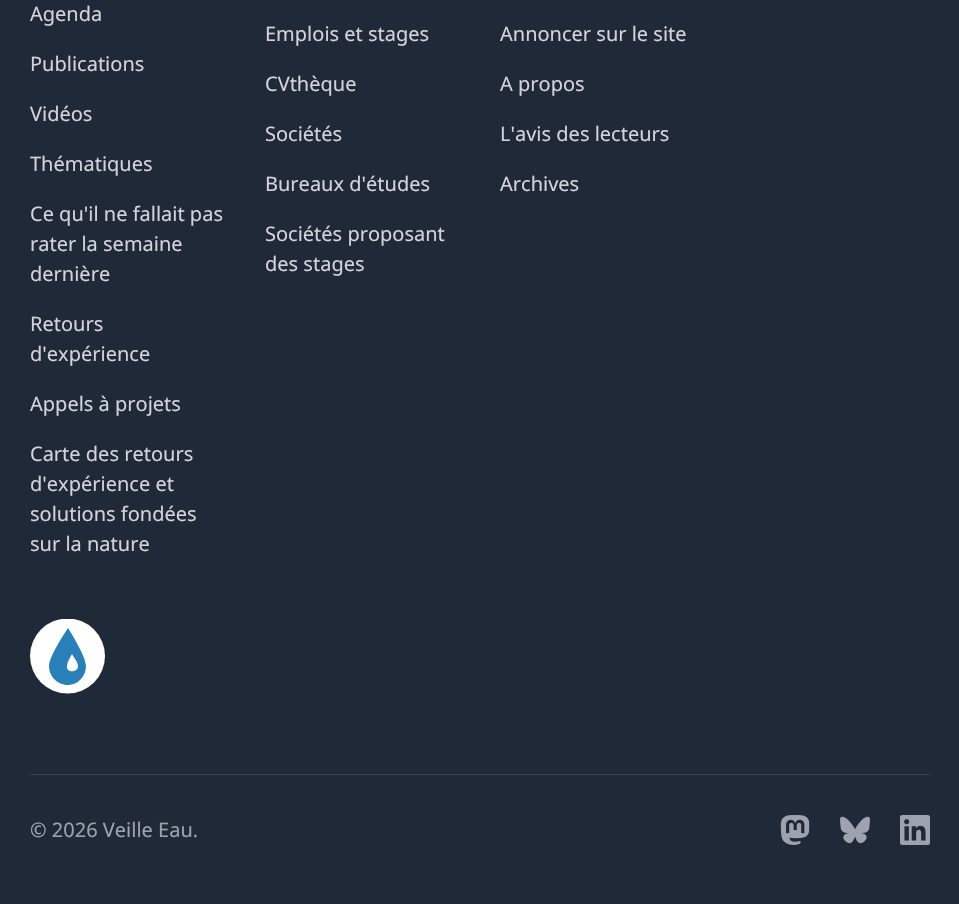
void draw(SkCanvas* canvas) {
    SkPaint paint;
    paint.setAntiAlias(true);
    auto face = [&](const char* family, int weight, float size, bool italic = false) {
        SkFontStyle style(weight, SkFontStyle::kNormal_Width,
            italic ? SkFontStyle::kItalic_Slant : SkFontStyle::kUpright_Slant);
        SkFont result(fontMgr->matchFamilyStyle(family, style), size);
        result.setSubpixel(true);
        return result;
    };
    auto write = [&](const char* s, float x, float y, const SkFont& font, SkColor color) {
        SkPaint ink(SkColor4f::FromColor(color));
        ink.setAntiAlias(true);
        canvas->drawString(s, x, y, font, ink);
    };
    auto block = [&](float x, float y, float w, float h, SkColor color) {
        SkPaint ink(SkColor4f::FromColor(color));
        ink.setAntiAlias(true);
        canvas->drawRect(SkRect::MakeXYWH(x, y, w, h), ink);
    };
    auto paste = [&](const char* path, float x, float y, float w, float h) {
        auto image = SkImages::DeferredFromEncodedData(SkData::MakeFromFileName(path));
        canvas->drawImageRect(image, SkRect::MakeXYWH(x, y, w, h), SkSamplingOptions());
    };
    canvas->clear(SkColorSetRGB(31, 41, 55));
    auto kFont1 = face("Noto Sans", 400, 20);
    write("Agenda", 30, 21, kFont1, SkColorSetRGB(209, 213, 219));
    write("Publications", 30, 71, kFont1, SkColorSetRGB(209, 213, 219));
    write("Vidéos", 30, 121, kFont1, SkColorSetRGB(209, 213, 219));
    write("Thématiques", 30, 171, kFont1, SkColorSetRGB(209, 213, 219));
    write("Ce qu'il ne fallait pas", 30, 221, kFont1, SkColorSetRGB(209, 213, 219));
    write("rater la semaine", 30, 251, kFont1, SkColorSetRGB(209, 213, 219));
    write("dernière", 30, 281, kFont1, SkColorSetRGB(209, 213, 219));
    write("Retours", 30, 331, kFont1, SkColorSetRGB(209, 213, 219));
    write("d'expérience", 30, 361, kFont1, SkColorSetRGB(209, 213, 219));
    write("Appels à projets", 30, 411, kFont1, SkColorSetRGB(209, 213, 219));
    write("Carte des retours", 30, 461, kFont1, SkColorSetRGB(209, 213, 219));
    write("d'expérience et", 30, 491, kFont1, SkColorSetRGB(209, 213, 219));
    write("solutions fondées", 30, 521, kFont1, SkColorSetRGB(209, 213, 219));
    write("sur la nature", 30, 551, kFont1, SkColorSetRGB(209, 213, 219));
    write("Emplois et stages", 265, 41, kFont1, SkColorSetRGB(209, 213, 219));
    write("CVthèque", 265, 91, kFont1, SkColorSetRGB(209, 213, 219));
    write("Sociétés", 265, 141, kFont1, SkColorSetRGB(209, 213, 219));
    write("Bureaux d'études", 265, 191, kFont1, SkColorSetRGB(209, 213, 219));
    write("Sociétés proposant", 265, 241, kFont1, SkColorSetRGB(209, 213, 219));
    write("des stages", 265, 271, kFont1, SkColorSetRGB(209, 213, 219));
    write("Annoncer sur le site", 500, 41, kFont1, SkColorSetRGB(209, 213, 219));
    write("A propos", 500, 91, kFont1, SkColorSetRGB(209, 213, 219));
    write("L'avis des lecteurs", 500, 141, kFont1, SkColorSetRGB(209, 213, 219));
    write("Archives", 500, 191, kFont1, SkColorSetRGB(209, 213, 219));
    canvas->save();
    canvas->clipRect(SkRect::MakeXYWH(30, 619, 75, 75));
    paint.setColor(SK_ColorWHITE);
    canvas->drawCircle(67.5f, 656, 37.5f, paint);
    canvas->restore();
    paint.setColor(SkColorSetRGB(41, 128, 185));
    canvas->drawPath(SkPathBuilder(SkPathFillType::kEvenOdd).moveTo(68, 685).cubicTo(78, 685, 86, 676, 86, 666).cubicTo(86, 656, 68, 628, 68, 628).cubicTo(68, 628, 49, 656, 49, 666).cubicTo(49, 676, 57, 685, 68, 685).close().moveTo(72, 654).cubicTo(74, 658, 78, 662, 78, 666).cubicTo(78, 673, 66, 673, 67, 666).cubicTo(67, 662, 70, 658, 72, 654).close().detach(), paint);
    block(30, 774, 900, 1, SkColorSetRGB(55, 65, 81));
    write("© 2026 Veille Eau.", 30, 837, kFont1, SkColorSetRGB(156, 163, 175));
    paste("pic1.png", 780, 815, 30, 30);
    paste("pic2.png", 840, 816, 30, 28);
    paste("pic3.png", 900, 815, 30, 30);
}
